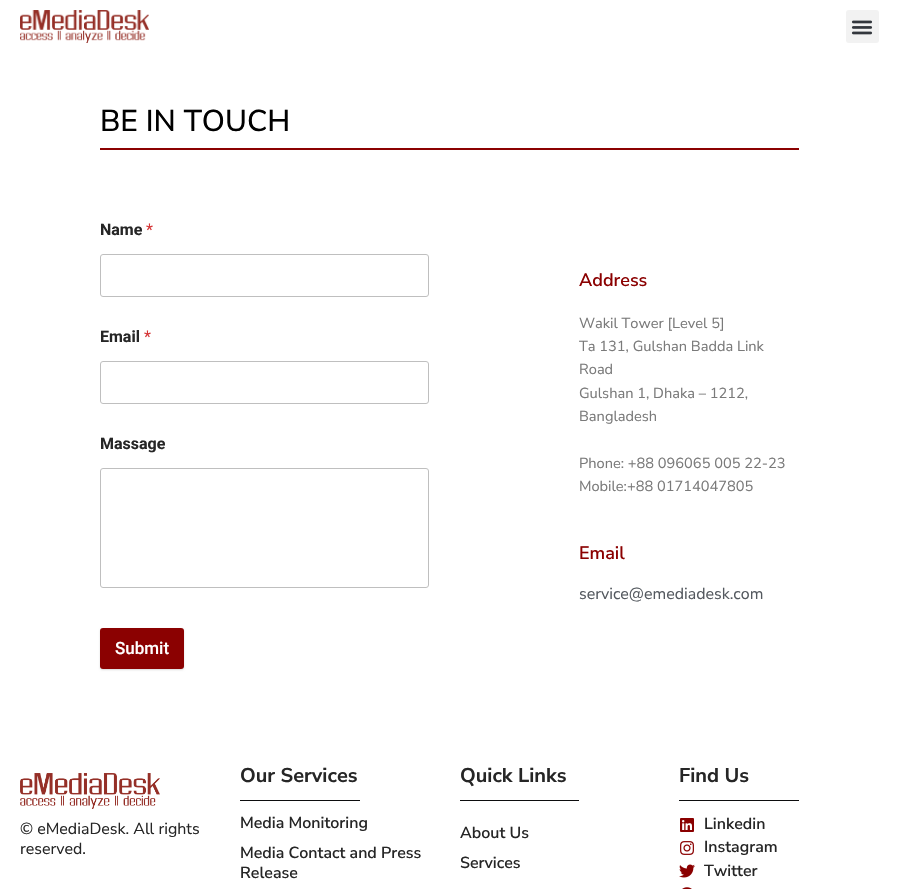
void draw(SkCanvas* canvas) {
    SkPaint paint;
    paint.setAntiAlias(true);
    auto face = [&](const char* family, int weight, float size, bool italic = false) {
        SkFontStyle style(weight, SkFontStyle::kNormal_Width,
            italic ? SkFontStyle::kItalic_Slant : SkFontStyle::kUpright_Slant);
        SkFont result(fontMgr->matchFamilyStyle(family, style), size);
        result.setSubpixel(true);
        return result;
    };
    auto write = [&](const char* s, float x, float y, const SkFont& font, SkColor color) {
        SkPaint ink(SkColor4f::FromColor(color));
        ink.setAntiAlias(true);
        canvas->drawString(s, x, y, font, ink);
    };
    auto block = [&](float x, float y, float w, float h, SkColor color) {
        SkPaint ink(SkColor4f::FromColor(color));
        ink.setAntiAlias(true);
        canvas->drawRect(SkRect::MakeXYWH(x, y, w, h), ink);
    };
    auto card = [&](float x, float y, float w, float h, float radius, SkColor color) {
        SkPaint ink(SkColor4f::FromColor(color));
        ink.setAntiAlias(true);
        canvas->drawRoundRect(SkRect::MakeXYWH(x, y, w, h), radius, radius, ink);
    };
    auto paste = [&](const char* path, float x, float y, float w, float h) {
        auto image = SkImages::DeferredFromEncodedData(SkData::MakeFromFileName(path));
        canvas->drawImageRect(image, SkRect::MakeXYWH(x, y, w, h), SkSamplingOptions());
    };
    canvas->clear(SK_ColorWHITE);
    paste("pic1.png", 20, 10, 129, 33);
    card(846, 10, 33, 33, 3, SkColorSetRGB(242, 242, 242));
    paste("pic2.png", 851, 20, 22, 15);
    auto kFont1 = face("Nunito Sans", 500, 30);
    write("BE IN TOUCH", 100, 131, kFont1, SK_ColorBLACK);
    block(100, 148, 699, 2, SkColorSetRGB(139, 1, 1));
    auto kFont2 = face("Roboto", 700, 16);
    write("Name", 100, 235, kFont2, SkColorSetRGB(38, 38, 38));
    auto kFont3 = face("Roboto", 400, 16);
    write("*", 146, 235, kFont3, SkColorSetRGB(214, 54, 55));
    paint.setStyle(SkPaint::kStroke_Style);
    paint.setStrokeWidth(1);
    paint.setColor(SkColorSetRGB(191, 191, 191));
    canvas->drawRoundRect(SkRect::MakeXYWH(100.5f, 254.5f, 328, 42), 2.5f, 2.5f, paint);
    write("Email", 100, 342, kFont2, SkColorSetRGB(38, 38, 38));
    write("*", 144, 342, kFont3, SkColorSetRGB(214, 54, 55));
    canvas->drawRoundRect(SkRect::MakeXYWH(100.5f, 361.5f, 328, 42), 2.5f, 2.5f, paint);
    write("Massage", 100, 449, kFont2, SkColorSetRGB(38, 38, 38));
    canvas->drawRoundRect(SkRect::MakeXYWH(100.5f, 468.5f, 328, 119), 2.5f, 2.5f, paint);
    paint.setStyle(SkPaint::kFill_Style);
    paint.setColor(SkColorSetARGB(38, 0, 0, 0));
    paint.setMaskFilter(SkMaskFilter::MakeBlur(kNormal_SkBlurStyle, 1));
    canvas->drawRoundRect(SkRect::MakeXYWH(100, 629, 84, 41), 3, 3, paint);
    paint.setMaskFilter(nullptr);
    card(100, 628, 84, 41, 3, SkColorSetRGB(139, 1, 1));
    auto kFont4 = face("Roboto", 500, 17);
    write("Submit", 115, 654, kFont4, SK_ColorWHITE);
    auto kFont5 = face("Nunito Sans", 600, 18);
    write("Address", 579, 286, kFont5, SkColorSetRGB(139, 1, 1));
    auto kFont6 = face("Nunito Sans", 400, 14.6f);
    write("Wakil Tower [Level 5]", 579, 328, kFont6, SkColorSetRGB(122, 122, 122));
    write("Ta 131, Gulshan Badda Link", 579, 351, kFont6, SkColorSetRGB(122, 122, 122));
    write("Road", 579, 374, kFont6, SkColorSetRGB(122, 122, 122));
    write("Gulshan 1, Dhaka – 1212,", 579, 398, kFont6, SkColorSetRGB(122, 122, 122));
    write("Bangladesh", 579, 421, kFont6, SkColorSetRGB(122, 122, 122));
    write("Phone: +88 096065 005 22-23", 579, 468, kFont6, SkColorSetRGB(122, 122, 122));
    write("Mobile:+88 01714047805", 579, 491, kFont6, SkColorSetRGB(122, 122, 122));
    write("Email", 579, 559, kFont5, SkColorSetRGB(139, 1, 1));
    auto kFont7 = face("Nunito Sans", 400, 16);
    write("service@emediadesk.com", 579, 599, kFont7, SkColorSetRGB(84, 89, 95));
    paste("pic3.png", 20, 773, 140, 36);
    write("© eMediaDesk. All rights", 20, 834, kFont7, SkColorSetRGB(38, 38, 38));
    write("reserved.", 20, 854, kFont7, SkColorSetRGB(38, 38, 38));
    auto kFont8 = face("Nunito Sans", 700, 20);
    write("Our Services", 240, 782, kFont8, SkColorSetRGB(38, 38, 38));
    block(240, 800, 120, 1, SkColorSetRGB(12, 13, 14));
    auto kFont9 = face("Nunito Sans", 600, 16);
    write("Media Monitoring", 240, 828, kFont9, SkColorSetRGB(38, 38, 38));
    write("Media Contact and Press", 240, 858, kFont9, SkColorSetRGB(38, 38, 38));
    write("Release", 240, 878, kFont9, SkColorSetRGB(38, 38, 38));
    write("Quick Links", 460, 782, kFont8, SkColorSetRGB(38, 38, 38));
    block(460, 800, 119, 1, SkColorSetRGB(12, 13, 14));
    write("About Us", 460, 838, kFont9, SkColorSetRGB(38, 38, 38));
    write("Services", 460, 868, kFont9, SkColorSetRGB(38, 38, 38));
    write("Find Us", 679, 782, kFont8, SkColorSetRGB(38, 38, 38));
    block(679, 800, 120, 1, SkColorSetRGB(12, 13, 14));
    paste("pic4.png", 680, 818, 14, 14);
    write("Linkedin", 704, 829, kFont9, SkColorSetRGB(38, 38, 38));
    paste("pic5.png", 680, 841, 14, 14);
    write("Instagram", 704, 852, kFont9, SkColorSetRGB(38, 38, 38));
    paste("pic6.png", 679, 864, 16, 14);
    write("Twitter", 704, 876, kFont9, SkColorSetRGB(38, 38, 38));
    paste("pic7.png", 682, 887, 10, 2);
}
